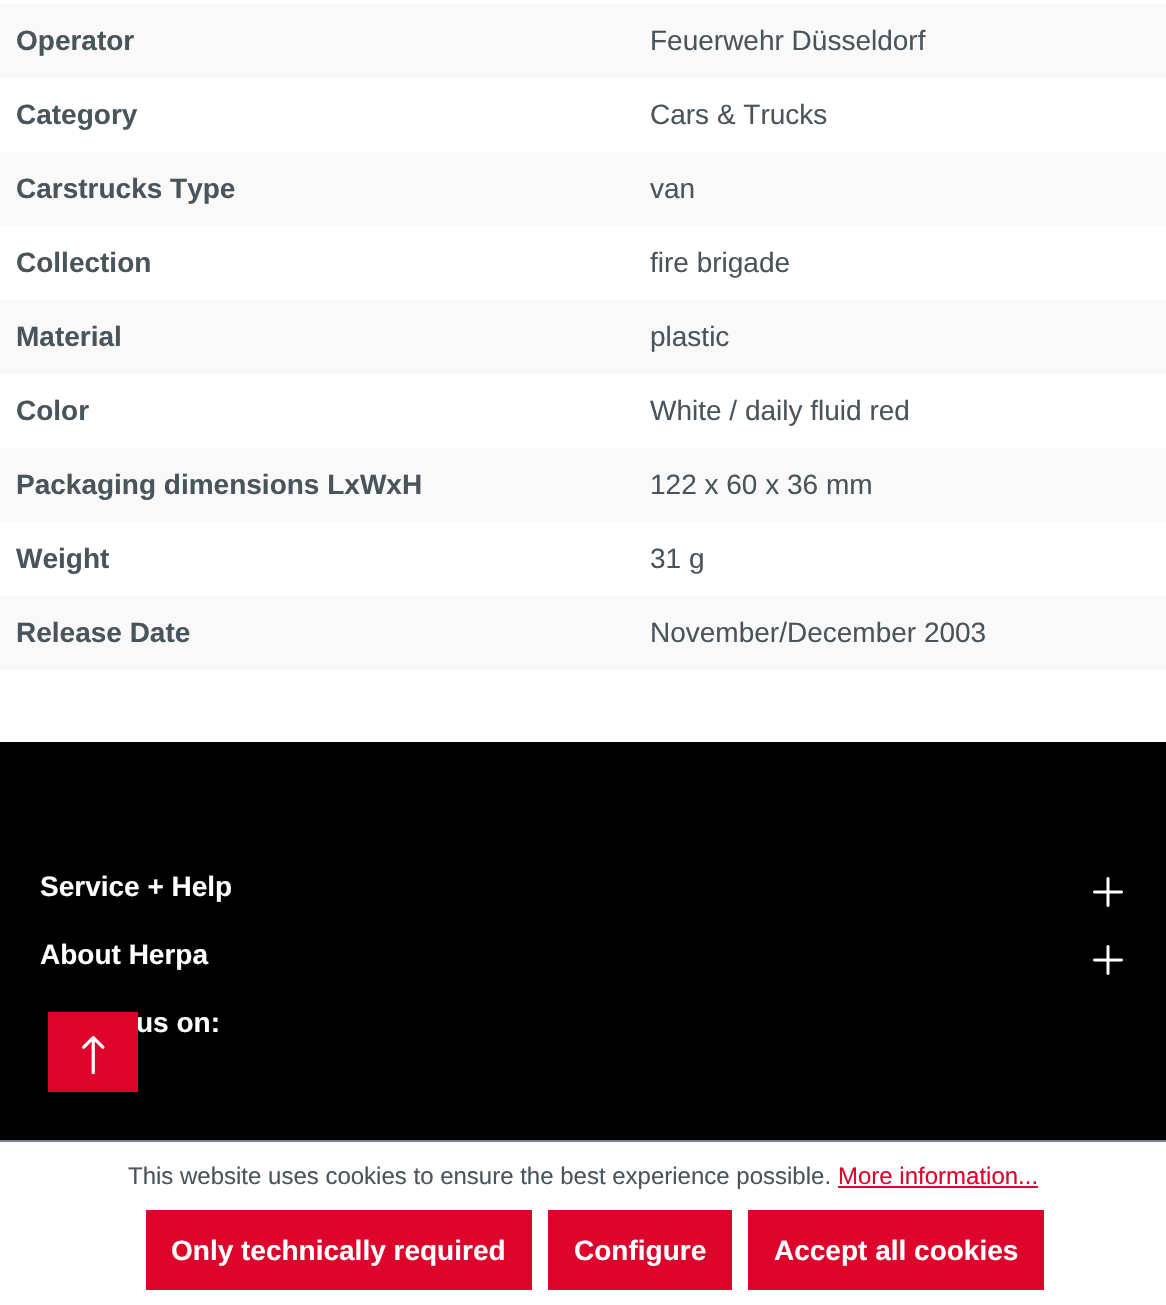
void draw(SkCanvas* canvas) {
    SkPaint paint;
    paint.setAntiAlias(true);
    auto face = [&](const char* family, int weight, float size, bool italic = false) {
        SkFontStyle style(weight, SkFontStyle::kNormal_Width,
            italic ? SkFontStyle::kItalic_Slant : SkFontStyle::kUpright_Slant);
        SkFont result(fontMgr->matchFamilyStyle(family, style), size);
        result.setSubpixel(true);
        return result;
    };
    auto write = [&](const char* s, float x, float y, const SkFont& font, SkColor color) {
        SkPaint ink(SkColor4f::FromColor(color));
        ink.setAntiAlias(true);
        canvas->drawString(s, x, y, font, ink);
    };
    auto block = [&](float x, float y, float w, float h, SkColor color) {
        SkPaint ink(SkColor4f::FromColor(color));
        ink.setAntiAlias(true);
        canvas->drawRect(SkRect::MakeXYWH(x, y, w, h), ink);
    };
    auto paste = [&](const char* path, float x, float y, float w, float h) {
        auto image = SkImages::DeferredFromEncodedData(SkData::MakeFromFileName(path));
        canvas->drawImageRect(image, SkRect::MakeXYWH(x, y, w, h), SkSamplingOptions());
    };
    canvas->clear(SK_ColorWHITE);
    block(0, 4, 1166, 74, SkColorSetRGB(249, 249, 249));
    auto kFont1 = face("Liberation Sans", 700, 28);
    write("Operator", 16, 50, kFont1, SkColorSetRGB(74, 84, 91));
    auto kFont2 = face("Liberation Sans", 400, 28);
    write("Feuerwehr Düsseldorf", 650, 50, kFont2, SkColorSetRGB(74, 84, 91));
    write("Category", 16, 124, kFont1, SkColorSetRGB(74, 84, 91));
    write("Cars & Trucks", 650, 124, kFont2, SkColorSetRGB(74, 84, 91));
    block(0, 152, 1166, 74, SkColorSetRGB(249, 249, 249));
    write("Carstrucks Type", 16, 198, kFont1, SkColorSetRGB(74, 84, 91));
    write("van", 650, 198, kFont2, SkColorSetRGB(74, 84, 91));
    write("Collection", 16, 272, kFont1, SkColorSetRGB(74, 84, 91));
    write("fire brigade", 650, 272, kFont2, SkColorSetRGB(74, 84, 91));
    block(0, 300, 1166, 74, SkColorSetRGB(249, 249, 249));
    write("Material", 16, 346, kFont1, SkColorSetRGB(74, 84, 91));
    write("plastic", 650, 346, kFont2, SkColorSetRGB(74, 84, 91));
    write("Color", 16, 420, kFont1, SkColorSetRGB(74, 84, 91));
    write("White / daily fluid red", 650, 420, kFont2, SkColorSetRGB(74, 84, 91));
    block(0, 448, 1166, 74, SkColorSetRGB(249, 249, 249));
    write("Packaging dimensions LxWxH", 16, 494, kFont1, SkColorSetRGB(74, 84, 91));
    write("122 x 60 x 36 mm", 650, 494, kFont2, SkColorSetRGB(74, 84, 91));
    write("Weight", 16, 568, kFont1, SkColorSetRGB(74, 84, 91));
    write("31 g", 650, 568, kFont2, SkColorSetRGB(74, 84, 91));
    block(0, 596, 1166, 74, SkColorSetRGB(249, 249, 249));
    write("Release Date", 16, 642, kFont1, SkColorSetRGB(74, 84, 91));
    write("November/December 2003", 650, 642, kFont2, SkColorSetRGB(74, 84, 91));
    block(0, 742, 1166, 398, SK_ColorBLACK);
    write("Service + Help", 40, 896, kFont1, SK_ColorWHITE);
    paste("pic1.png", 1093, 877, 30, 30);
    write("About Herpa", 40, 964, kFont1, SK_ColorWHITE);
    paste("pic1.png", 1093, 945, 30, 30);
    write("us on:", 136, 1032, kFont1, SK_ColorWHITE);
    block(48, 1012, 90, 80, SkColorSetRGB(221, 5, 43));
    paste("pic2.png", 82, 1036, 23, 38);
    block(0, 1140, 1166, 2, SkColorSetRGB(121, 132, 144));
    auto kFont3 = face("Liberation Sans", 400, 24);
    write("This website uses cookies to ensure the best experience possible.", 128, 1184, kFont3, SkColorSetRGB(74, 84, 91));
    write("More information...", 838, 1184, kFont3, SkColorSetRGB(221, 5, 43));
    block(838, 1186, 200, 2, SkColorSetRGB(221, 5, 43));
    block(146, 1210, 386, 80, SkColorSetRGB(221, 5, 43));
    write("Only technically required", 171, 1260, kFont1, SK_ColorWHITE);
    block(548, 1210, 184, 80, SkColorSetRGB(221, 5, 43));
    write("Configure", 574, 1260, kFont1, SK_ColorWHITE);
    block(748, 1210, 296, 80, SkColorSetRGB(221, 5, 43));
    write("Accept all cookies", 774, 1260, kFont1, SK_ColorWHITE);
}
